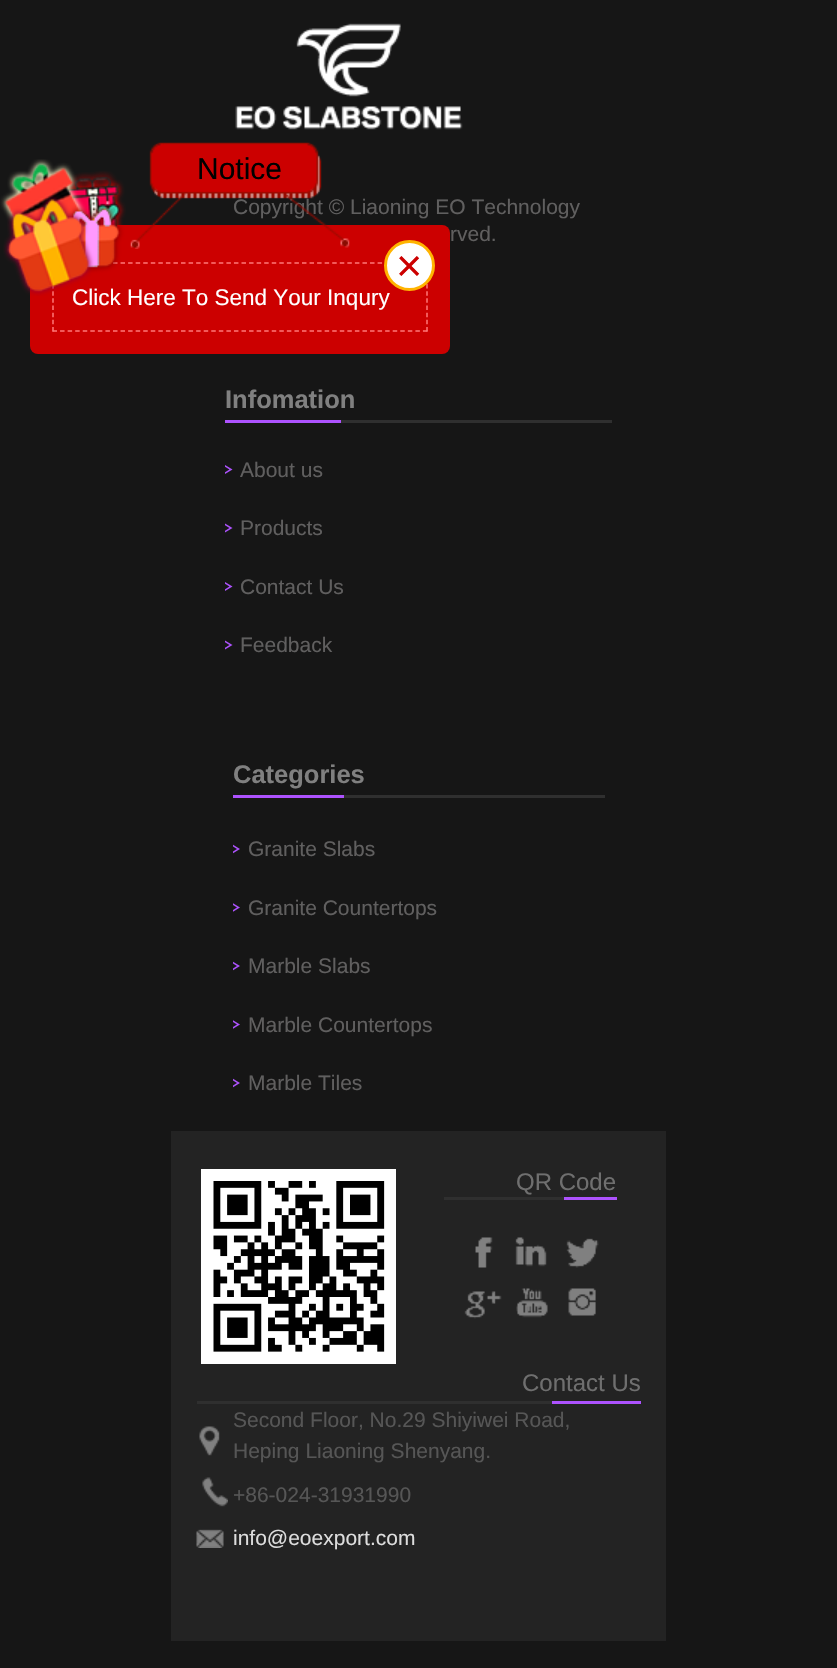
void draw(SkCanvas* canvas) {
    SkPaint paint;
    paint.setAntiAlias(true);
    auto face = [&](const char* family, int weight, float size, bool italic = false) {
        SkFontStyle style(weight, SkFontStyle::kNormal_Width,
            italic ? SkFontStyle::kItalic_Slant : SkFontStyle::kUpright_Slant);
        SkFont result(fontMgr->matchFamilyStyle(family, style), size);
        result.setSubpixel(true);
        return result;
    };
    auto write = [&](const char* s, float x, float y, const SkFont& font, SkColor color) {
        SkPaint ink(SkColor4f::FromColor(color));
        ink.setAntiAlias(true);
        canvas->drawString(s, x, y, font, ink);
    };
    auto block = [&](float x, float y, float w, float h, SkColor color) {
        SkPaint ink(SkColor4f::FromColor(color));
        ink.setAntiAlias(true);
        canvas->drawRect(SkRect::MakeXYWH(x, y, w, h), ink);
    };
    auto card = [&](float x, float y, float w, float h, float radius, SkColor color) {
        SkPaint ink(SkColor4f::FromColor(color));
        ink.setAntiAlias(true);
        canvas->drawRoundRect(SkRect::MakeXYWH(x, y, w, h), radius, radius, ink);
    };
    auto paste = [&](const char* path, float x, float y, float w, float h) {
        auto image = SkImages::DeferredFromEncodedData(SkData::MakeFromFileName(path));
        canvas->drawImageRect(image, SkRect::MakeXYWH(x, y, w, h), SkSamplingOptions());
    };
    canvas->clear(SkColorSetRGB(22, 22, 22));
    card(30, 225, 420, 129, 8, SkColorSetRGB(204, 0, 0));
    paint.setStyle(SkPaint::kStroke_Style);
    paint.setStrokeWidth(1.5f);
    paint.setColor(SkColorSetRGB(255, 119, 119));
    paint.setPathEffect(SkDashPathEffect::Make({{4.5f, 3.06f}}, 0));
    canvas->drawPath(SkPathBuilder().moveTo(52.5f, 263).lineTo(427.5f, 263).detach(), paint);
    paint.setPathEffect(nullptr);
    paint.setPathEffect(SkDashPathEffect::Make({{4.5f, 2.67f}}, 0));
    canvas->drawPath(SkPathBuilder().moveTo(427, 262.5f).lineTo(427, 331.5f).detach(), paint);
    paint.setPathEffect(nullptr);
    paint.setPathEffect(SkDashPathEffect::Make({{4.5f, 3.06f}}, 0));
    canvas->drawPath(SkPathBuilder().moveTo(52.5f, 331).lineTo(427.5f, 331).detach(), paint);
    paint.setPathEffect(nullptr);
    paint.setPathEffect(SkDashPathEffect::Make({{4.5f, 2.67f}}, 0));
    canvas->drawPath(SkPathBuilder().moveTo(53, 262.5f).lineTo(53, 331.5f).detach(), paint);
    paint.setPathEffect(nullptr);
    auto kFont1 = face("Liberation Sans", 400, 22.5f);
    write("Click Here To Send Your Inqury", 72, 305, kFont1, SK_ColorWHITE);
    paste("pic1.png", 0, 159, 126, 137);
    auto kFont2 = face("Liberation Sans", 400, 21);
    write("Copyright © Liaoning EO Technology", 233, 214, kFont2, SkColorSetRGB(96, 95, 95));
    paste("pic2.png", 130, 142, 220, 107);
    auto kFont3 = face("Liberation Sans", 400, 30);
    write("Notice", 197, 179, kFont3, SK_ColorBLACK);
    paint.setStyle(SkPaint::kFill_Style);
    paint.setColor(SK_ColorWHITE);
    canvas->drawCircle(409.5f, 265.5f, 24, paint);
    paint.setStyle(SkPaint::kStroke_Style);
    paint.setStrokeWidth(3);
    paint.setColor(SkColorSetRGB(255, 180, 0));
    canvas->drawCircle(409.5f, 265.5f, 24, paint);
    auto kFont4 = face("Liberation Sans", 400, 45);
    write("×", 396, 281, kFont4, SkColorSetRGB(204, 0, 0));
    paste("pic3.png", 235, 23, 228, 107);
    write("rved.", 450, 241, kFont2, SkColorSetRGB(96, 95, 95));
    block(341, 420, 271, 3, SkColorSetRGB(47, 47, 47));
    auto kFont5 = face("Liberation Sans", 700, 25.5f);
    write("Infomation", 225, 408, kFont5, SkColorSetRGB(128, 128, 128));
    block(225, 420, 116, 3, SkColorSetRGB(173, 82, 254));
    paint.setStyle(SkPaint::kFill_Style);
    paint.setColor(SkColorSetRGB(173, 82, 254));
    canvas->drawPath(SkPathBuilder().moveTo(225, 474).lineTo(225, 465).lineTo(232.5f, 469.5f).close().detach(), paint);
    write("About us", 240, 477, kFont2, SkColorSetRGB(96, 95, 95));
    canvas->save();
    canvas->clipRect(SkRect::MakeXYWH(225, 441, 192, 234));
    paint.setColor(SkColorSetRGB(22, 22, 22));
    canvas->drawPath(SkPathBuilder().moveTo(222, 474).lineTo(222, 465).lineTo(229.5f, 469.5f).close().detach(), paint);
    canvas->restore();
    paint.setColor(SkColorSetRGB(173, 82, 254));
    canvas->drawPath(SkPathBuilder().moveTo(225, 532.5f).lineTo(225, 523.5f).lineTo(232.5f, 528).close().detach(), paint);
    write("Products", 240, 535, kFont2, SkColorSetRGB(96, 95, 95));
    canvas->save();
    canvas->clipRect(SkRect::MakeXYWH(225, 441, 192, 234));
    paint.setColor(SkColorSetRGB(22, 22, 22));
    canvas->drawPath(SkPathBuilder().moveTo(222, 532.5f).lineTo(222, 523.5f).lineTo(229.5f, 528).close().detach(), paint);
    canvas->restore();
    paint.setColor(SkColorSetRGB(173, 82, 254));
    canvas->drawPath(SkPathBuilder().moveTo(225, 591).lineTo(225, 582).lineTo(232.5f, 586.5f).close().detach(), paint);
    write("Contact Us", 240, 594, kFont2, SkColorSetRGB(96, 95, 95));
    canvas->save();
    canvas->clipRect(SkRect::MakeXYWH(225, 441, 192, 234));
    paint.setColor(SkColorSetRGB(22, 22, 22));
    canvas->drawPath(SkPathBuilder().moveTo(222, 591).lineTo(222, 582).lineTo(229.5f, 586.5f).close().detach(), paint);
    canvas->restore();
    paint.setColor(SkColorSetRGB(173, 82, 254));
    canvas->drawPath(SkPathBuilder().moveTo(225, 649.5f).lineTo(225, 640.5f).lineTo(232.5f, 645).close().detach(), paint);
    write("Feedback", 240, 652, kFont2, SkColorSetRGB(96, 95, 95));
    canvas->save();
    canvas->clipRect(SkRect::MakeXYWH(225, 441, 192, 234));
    paint.setColor(SkColorSetRGB(22, 22, 22));
    canvas->drawPath(SkPathBuilder().moveTo(222, 649.5f).lineTo(222, 640.5f).lineTo(229.5f, 645).close().detach(), paint);
    canvas->restore();
    block(344, 795, 261, 3, SkColorSetRGB(47, 47, 47));
    write("Categories", 233, 783, kFont5, SkColorSetRGB(128, 128, 128));
    block(233, 795, 111, 3, SkColorSetRGB(173, 82, 254));
    canvas->save();
    canvas->clipRect(SkRect::MakeXYWH(233, 821, 393, 58));
    paint.setColor(SkColorSetRGB(173, 82, 254));
    canvas->drawPath(SkPathBuilder().moveTo(232.5f, 853.5f).lineTo(232.5f, 844.5f).lineTo(240, 849).close().detach(), paint);
    canvas->restore();
    write("Granite Slabs", 248, 856, kFont2, SkColorSetRGB(96, 95, 95));
    canvas->save();
    canvas->clipRect(SkRect::MakeXYWH(233, 821, 393, 58));
    paint.setColor(SkColorSetRGB(22, 22, 22));
    canvas->drawPath(SkPathBuilder().moveTo(229.5f, 853.5f).lineTo(229.5f, 844.5f).lineTo(237, 849).close().detach(), paint);
    canvas->restore();
    canvas->save();
    canvas->clipRect(SkRect::MakeXYWH(233, 879, 393, 59));
    paint.setColor(SkColorSetRGB(173, 82, 254));
    canvas->drawPath(SkPathBuilder().moveTo(232.5f, 912).lineTo(232.5f, 903).lineTo(240, 907.5f).close().detach(), paint);
    canvas->restore();
    write("Granite Countertops", 248, 915, kFont2, SkColorSetRGB(96, 95, 95));
    canvas->save();
    canvas->clipRect(SkRect::MakeXYWH(233, 879, 393, 59));
    paint.setColor(SkColorSetRGB(22, 22, 22));
    canvas->drawPath(SkPathBuilder().moveTo(229.5f, 912).lineTo(229.5f, 903).lineTo(237, 907.5f).close().detach(), paint);
    canvas->restore();
    canvas->save();
    canvas->clipRect(SkRect::MakeXYWH(233, 938, 393, 58));
    paint.setColor(SkColorSetRGB(173, 82, 254));
    canvas->drawPath(SkPathBuilder().moveTo(232.5f, 970.5f).lineTo(232.5f, 961.5f).lineTo(240, 966).close().detach(), paint);
    canvas->restore();
    write("Marble Slabs", 248, 973, kFont2, SkColorSetRGB(96, 95, 95));
    canvas->save();
    canvas->clipRect(SkRect::MakeXYWH(233, 938, 393, 58));
    paint.setColor(SkColorSetRGB(22, 22, 22));
    canvas->drawPath(SkPathBuilder().moveTo(229.5f, 970.5f).lineTo(229.5f, 961.5f).lineTo(237, 966).close().detach(), paint);
    canvas->restore();
    canvas->save();
    canvas->clipRect(SkRect::MakeXYWH(233, 996, 393, 59));
    paint.setColor(SkColorSetRGB(173, 82, 254));
    canvas->drawPath(SkPathBuilder().moveTo(232.5f, 1029).lineTo(232.5f, 1020).lineTo(240, 1024.5f).close().detach(), paint);
    canvas->restore();
    write("Marble Countertops", 248, 1032, kFont2, SkColorSetRGB(96, 95, 95));
    canvas->save();
    canvas->clipRect(SkRect::MakeXYWH(233, 996, 393, 59));
    paint.setColor(SkColorSetRGB(22, 22, 22));
    canvas->drawPath(SkPathBuilder().moveTo(229.5f, 1029).lineTo(229.5f, 1020).lineTo(237, 1024.5f).close().detach(), paint);
    canvas->restore();
    canvas->save();
    canvas->clipRect(SkRect::MakeXYWH(233, 1055, 393, 58));
    paint.setColor(SkColorSetRGB(173, 82, 254));
    canvas->drawPath(SkPathBuilder().moveTo(232.5f, 1087.5f).lineTo(232.5f, 1078.5f).lineTo(240, 1083).close().detach(), paint);
    canvas->restore();
    write("Marble Tiles", 248, 1090, kFont2, SkColorSetRGB(96, 95, 95));
    canvas->save();
    canvas->clipRect(SkRect::MakeXYWH(233, 1055, 393, 58));
    paint.setColor(SkColorSetRGB(22, 22, 22));
    canvas->drawPath(SkPathBuilder().moveTo(229.5f, 1087.5f).lineTo(229.5f, 1078.5f).lineTo(237, 1083).close().detach(), paint);
    canvas->restore();
    block(171, 1131, 495, 510, SkColorSetRGB(35, 35, 35));
    block(201, 1169, 195, 195, SK_ColorWHITE);
    paste("pic4.png", 213, 1181, 172, 171);
    block(444, 1197, 120, 3, SkColorSetRGB(47, 47, 47));
    auto kFont6 = face("Liberation Sans", 400, 24);
    write("QR Code", 516, 1190, kFont6, SkColorSetRGB(111, 111, 111));
    block(564, 1197, 53, 3, SkColorSetRGB(173, 82, 254));
    paste("pic5.png", 475, 1237, 18, 31);
    paste("pic6.png", 515, 1237, 32, 30);
    paste("pic7.png", 566, 1238, 33, 30);
    paste("pic8.png", 464, 1291, 38, 28);
    paste("pic9.png", 516, 1288, 32, 30);
    paste("pic10.png", 568, 1288, 28, 28);
    block(197, 1401, 355, 3, SkColorSetRGB(47, 47, 47));
    write("Contact Us", 522, 1391, kFont6, SkColorSetRGB(111, 111, 111));
    block(552, 1401, 89, 3, SkColorSetRGB(173, 82, 254));
    paste("pic11.png", 199, 1426, 21, 30);
    write("Second Floor, No.29 Shiyiwei Road,", 233, 1427, kFont2, SkColorSetRGB(86, 86, 86));
    write("Heping Liaoning Shenyang.", 233, 1458, kFont2, SkColorSetRGB(86, 86, 86));
    paste("pic12.png", 202, 1477, 26, 30);
    write("+86-024-31931990", 233, 1502, kFont2, SkColorSetRGB(86, 86, 86));
    paste("pic13.png", 196, 1529, 28, 19);
    write("info@eoexport.com", 233, 1545, kFont2, SkColorSetRGB(221, 221, 221));
}
